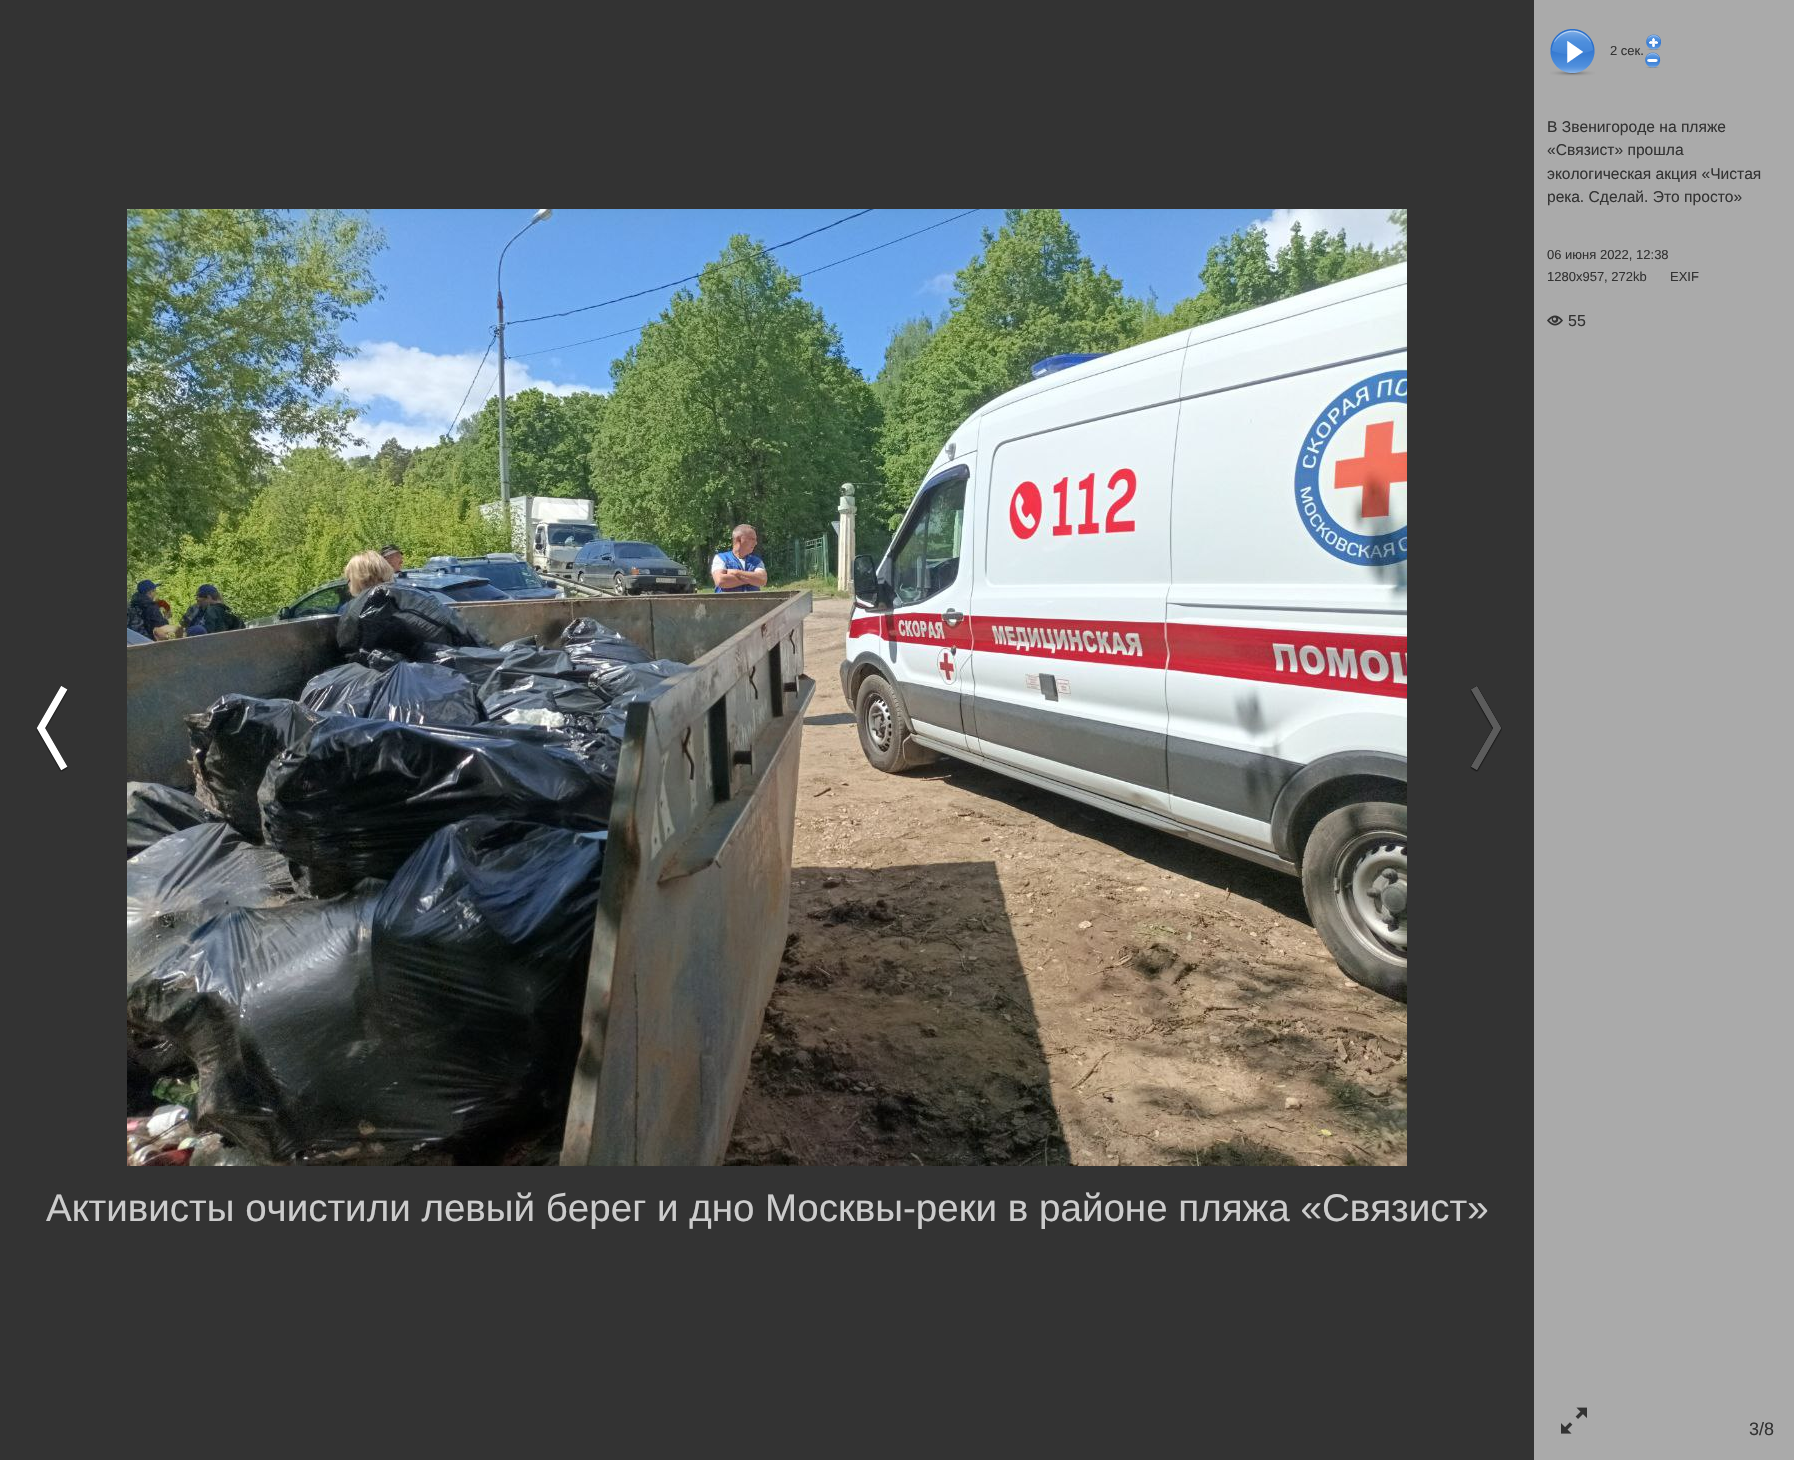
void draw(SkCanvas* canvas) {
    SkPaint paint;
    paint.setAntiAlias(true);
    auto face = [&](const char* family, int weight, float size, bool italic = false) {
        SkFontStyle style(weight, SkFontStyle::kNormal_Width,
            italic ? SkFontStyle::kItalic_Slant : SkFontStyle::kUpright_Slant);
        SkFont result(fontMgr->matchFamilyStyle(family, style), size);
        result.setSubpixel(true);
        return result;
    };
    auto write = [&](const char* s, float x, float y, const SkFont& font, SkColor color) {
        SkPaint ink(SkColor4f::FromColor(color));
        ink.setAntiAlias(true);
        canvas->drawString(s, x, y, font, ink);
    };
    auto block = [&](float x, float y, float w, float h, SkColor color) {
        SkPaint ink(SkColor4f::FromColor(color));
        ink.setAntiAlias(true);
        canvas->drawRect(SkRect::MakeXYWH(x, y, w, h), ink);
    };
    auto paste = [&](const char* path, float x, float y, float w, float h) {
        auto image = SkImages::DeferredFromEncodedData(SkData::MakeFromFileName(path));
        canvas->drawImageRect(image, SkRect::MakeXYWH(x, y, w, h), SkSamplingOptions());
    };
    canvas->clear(SkColorSetRGB(51, 51, 51));
    paste("pic1.png", 36, 686, 32, 86);
    paste("pic2.png", 127, 209, 1280, 957);
    paste("pic3.png", 1470, 686, 32, 86);
    auto kFont1 = face("Liberation Sans", 400, 38.55f);
    write("Активисты очистили левый берег и дно Москвы-реки в районе пляжа «Связист»", 46, 1221, kFont1, SkColorSetRGB(204, 204, 204));
    block(1534, 0, 260, 1460, SkColorSetRGB(170, 170, 170));
    paste("pic4.png", 1550, 29, 45, 47);
    auto kFont2 = face("Liberation Sans", 400, 13);
    write("2 сек.", 1610, 55, kFont2, SkColorSetRGB(51, 51, 51));
    paste("pic5.png", 1646, 34, 15, 16);
    paste("pic6.png", 1645, 52, 16, 16);
    auto kFont3 = face("Liberation Sans", 400, 15.6f);
    write("В Звенигороде на пляже", 1547, 132, kFont3, SkColorSetRGB(51, 51, 51));
    write("«Связист» прошла", 1547, 155, kFont3, SkColorSetRGB(51, 51, 51));
    write("экологическая акция «Чистая", 1547, 179, kFont3, SkColorSetRGB(51, 51, 51));
    write("река. Сделай. Это просто»", 1547, 202, kFont3, SkColorSetRGB(51, 51, 51));
    write("06 июня 2022, 12:38", 1547, 259, kFont2, SkColorSetRGB(51, 51, 51));
    write("1280x957, 272kb", 1547, 281, kFont2, SkColorSetRGB(51, 51, 51));
    write("EXIF", 1670, 281, kFont2, SkColorSetRGB(51, 51, 51));
    paste("pic7.png", 1547, 315, 16, 11);
    auto kFont4 = face("Liberation Sans", 400, 16);
    write("55", 1568, 326, kFont4, SkColorSetRGB(51, 51, 51));
    paste("pic8.png", 1561, 1407, 26, 27);
    auto kFont5 = face("Liberation Sans", 400, 18);
    write("3/8", 1749, 1435, kFont5, SkColorSetRGB(51, 51, 51));
}
